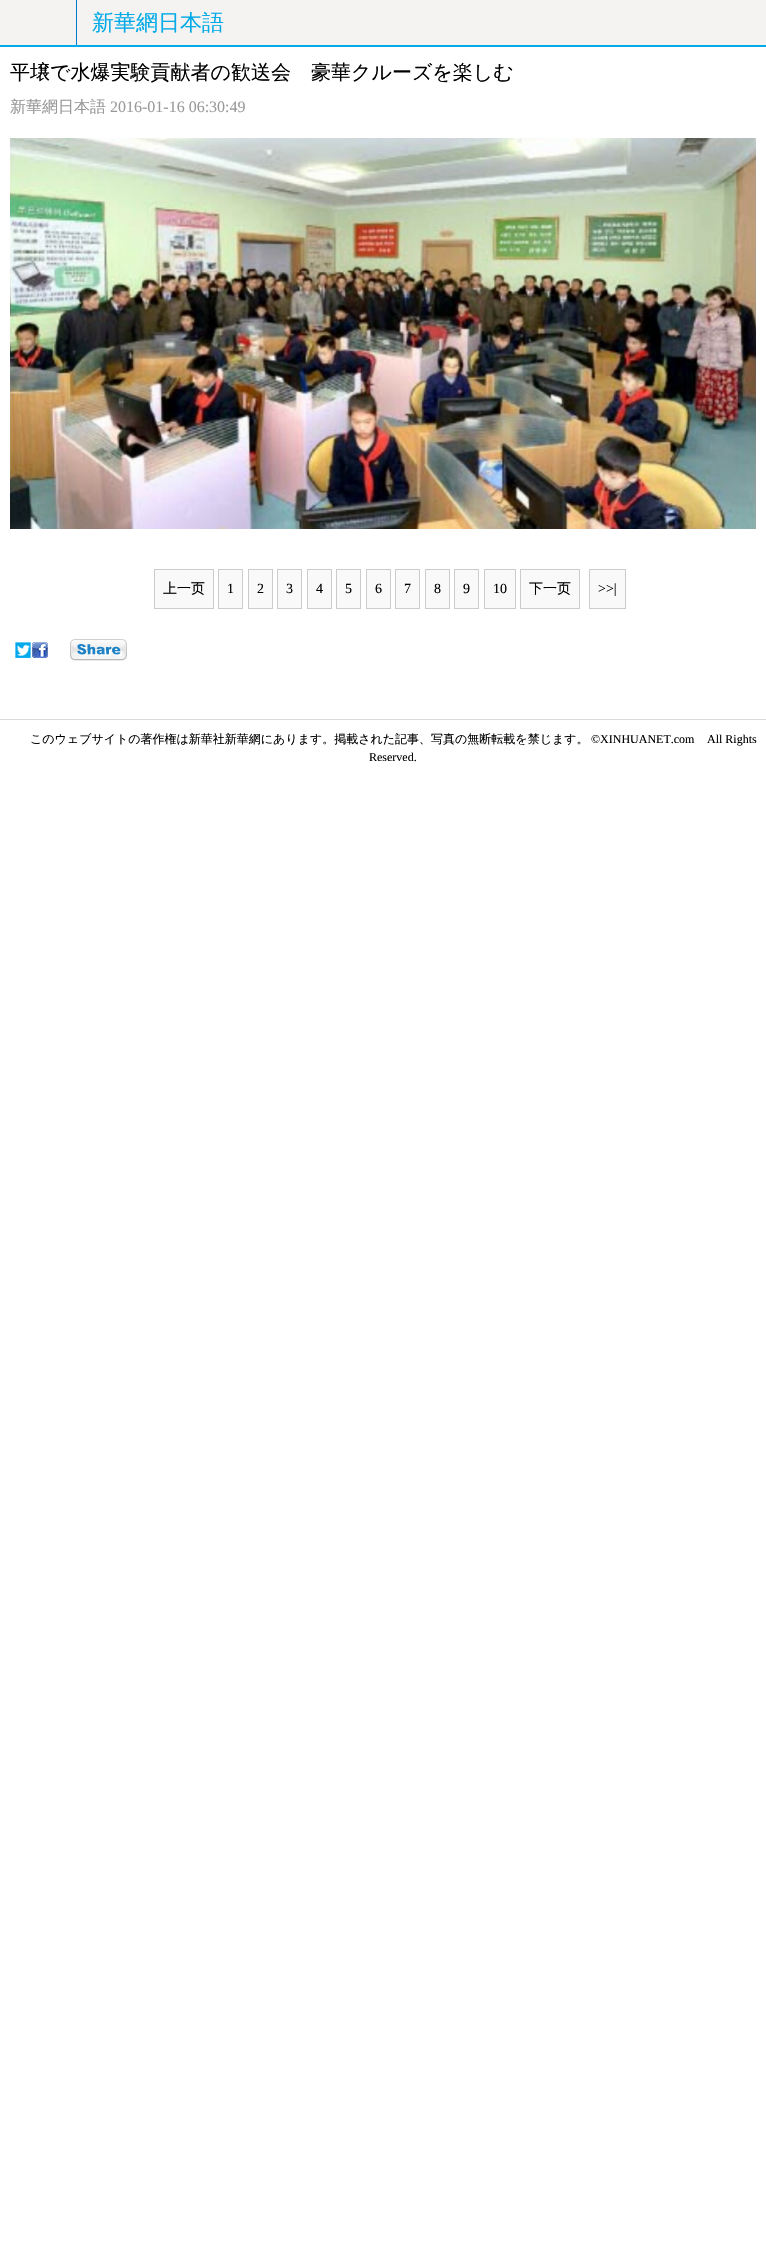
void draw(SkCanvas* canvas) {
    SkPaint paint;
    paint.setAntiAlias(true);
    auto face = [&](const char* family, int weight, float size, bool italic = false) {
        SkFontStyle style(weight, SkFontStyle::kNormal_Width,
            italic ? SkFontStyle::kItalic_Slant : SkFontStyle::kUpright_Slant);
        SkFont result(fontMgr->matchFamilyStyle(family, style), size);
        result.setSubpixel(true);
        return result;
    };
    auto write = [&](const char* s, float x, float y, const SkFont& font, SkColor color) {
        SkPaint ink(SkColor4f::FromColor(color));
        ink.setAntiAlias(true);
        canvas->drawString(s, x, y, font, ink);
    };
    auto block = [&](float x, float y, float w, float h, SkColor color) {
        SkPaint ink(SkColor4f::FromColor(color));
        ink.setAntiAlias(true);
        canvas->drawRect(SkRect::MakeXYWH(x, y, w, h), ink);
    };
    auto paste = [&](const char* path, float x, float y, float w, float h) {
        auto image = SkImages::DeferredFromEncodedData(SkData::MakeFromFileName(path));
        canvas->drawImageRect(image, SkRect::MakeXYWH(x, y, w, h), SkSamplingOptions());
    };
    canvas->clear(SK_ColorWHITE);
    block(0, 0, 766, 45, SkColorSetRGB(245, 243, 242));
    block(0, 45, 766, 2, SkColorSetRGB(0, 171, 231));
    block(76, 0, 1, 45, SkColorSetRGB(0, 121, 200));
    auto kFont1 = face("WenQuanYi Zen Hei", 500, 22);
    write("新華網日本語", 92, 30, kFont1, SkColorSetRGB(0, 170, 231));
    auto kFont2 = face("WenQuanYi Zen Hei", 500, 20);
    write("平壌で水爆実験貢献者の歓送会　豪華クルーズを楽しむ", 10, 79, kFont2, SK_ColorBLACK);
    auto kFont3 = face("WenQuanYi Zen Hei", 500, 16);
    write("新華網日本語", 10, 112, kFont3, SkColorSetRGB(153, 153, 153));
    auto kFont4 = face("Liberation Serif", 400, 16);
    write("2016-01-16 06:30:49", 110, 112, kFont4, SkColorSetRGB(153, 153, 153));
    paste("pic1.png", 10, 138, 746, 391);
    paint.setColor(SkColorSetRGB(249, 249, 249));
    canvas->drawRect(SkRect::MakeXYWH(154.5f, 569.5f, 59, 39), paint);
    paint.setStyle(SkPaint::kStroke_Style);
    paint.setStrokeWidth(1);
    paint.setColor(SkColorSetRGB(204, 204, 204));
    canvas->drawRect(SkRect::MakeXYWH(154.5f, 569.5f, 59, 39), paint);
    auto kFont5 = face("WenQuanYi Zen Hei", 500, 14);
    write("上一页", 163, 593, kFont5, SK_ColorBLACK);
    paint.setStyle(SkPaint::kFill_Style);
    paint.setColor(SkColorSetRGB(249, 249, 249));
    canvas->drawRect(SkRect::MakeXYWH(218.5f, 569.5f, 24, 39), paint);
    paint.setStyle(SkPaint::kStroke_Style);
    paint.setColor(SkColorSetRGB(204, 204, 204));
    canvas->drawRect(SkRect::MakeXYWH(218.5f, 569.5f, 24, 39), paint);
    auto kFont6 = face("Liberation Serif", 400, 14);
    write("1", 227, 593, kFont6, SK_ColorBLACK);
    paint.setStyle(SkPaint::kFill_Style);
    paint.setColor(SkColorSetRGB(249, 249, 249));
    canvas->drawRect(SkRect::MakeXYWH(248.5f, 569.5f, 24, 39), paint);
    paint.setStyle(SkPaint::kStroke_Style);
    paint.setColor(SkColorSetRGB(204, 204, 204));
    canvas->drawRect(SkRect::MakeXYWH(248.5f, 569.5f, 24, 39), paint);
    write("2", 257, 593, kFont6, SK_ColorBLACK);
    paint.setStyle(SkPaint::kFill_Style);
    paint.setColor(SkColorSetRGB(249, 249, 249));
    canvas->drawRect(SkRect::MakeXYWH(277.5f, 569.5f, 24, 39), paint);
    paint.setStyle(SkPaint::kStroke_Style);
    paint.setColor(SkColorSetRGB(204, 204, 204));
    canvas->drawRect(SkRect::MakeXYWH(277.5f, 569.5f, 24, 39), paint);
    write("3", 286, 593, kFont6, SK_ColorBLACK);
    paint.setStyle(SkPaint::kFill_Style);
    paint.setColor(SkColorSetRGB(249, 249, 249));
    canvas->drawRect(SkRect::MakeXYWH(307.5f, 569.5f, 24, 39), paint);
    paint.setStyle(SkPaint::kStroke_Style);
    paint.setColor(SkColorSetRGB(204, 204, 204));
    canvas->drawRect(SkRect::MakeXYWH(307.5f, 569.5f, 24, 39), paint);
    write("4", 316, 593, kFont6, SK_ColorBLACK);
    paint.setStyle(SkPaint::kFill_Style);
    paint.setColor(SkColorSetRGB(249, 249, 249));
    canvas->drawRect(SkRect::MakeXYWH(336.5f, 569.5f, 24, 39), paint);
    paint.setStyle(SkPaint::kStroke_Style);
    paint.setColor(SkColorSetRGB(204, 204, 204));
    canvas->drawRect(SkRect::MakeXYWH(336.5f, 569.5f, 24, 39), paint);
    write("5", 345, 593, kFont6, SK_ColorBLACK);
    paint.setStyle(SkPaint::kFill_Style);
    paint.setColor(SkColorSetRGB(249, 249, 249));
    canvas->drawRect(SkRect::MakeXYWH(366.5f, 569.5f, 24, 39), paint);
    paint.setStyle(SkPaint::kStroke_Style);
    paint.setColor(SkColorSetRGB(204, 204, 204));
    canvas->drawRect(SkRect::MakeXYWH(366.5f, 569.5f, 24, 39), paint);
    write("6", 375, 593, kFont6, SK_ColorBLACK);
    paint.setStyle(SkPaint::kFill_Style);
    paint.setColor(SkColorSetRGB(249, 249, 249));
    canvas->drawRect(SkRect::MakeXYWH(395.5f, 569.5f, 24, 39), paint);
    paint.setStyle(SkPaint::kStroke_Style);
    paint.setColor(SkColorSetRGB(204, 204, 204));
    canvas->drawRect(SkRect::MakeXYWH(395.5f, 569.5f, 24, 39), paint);
    write("7", 404, 593, kFont6, SK_ColorBLACK);
    paint.setStyle(SkPaint::kFill_Style);
    paint.setColor(SkColorSetRGB(249, 249, 249));
    canvas->drawRect(SkRect::MakeXYWH(425.5f, 569.5f, 24, 39), paint);
    paint.setStyle(SkPaint::kStroke_Style);
    paint.setColor(SkColorSetRGB(204, 204, 204));
    canvas->drawRect(SkRect::MakeXYWH(425.5f, 569.5f, 24, 39), paint);
    write("8", 434, 593, kFont6, SK_ColorBLACK);
    paint.setStyle(SkPaint::kFill_Style);
    paint.setColor(SkColorSetRGB(249, 249, 249));
    canvas->drawRect(SkRect::MakeXYWH(454.5f, 569.5f, 24, 39), paint);
    paint.setStyle(SkPaint::kStroke_Style);
    paint.setColor(SkColorSetRGB(204, 204, 204));
    canvas->drawRect(SkRect::MakeXYWH(454.5f, 569.5f, 24, 39), paint);
    write("9", 463, 593, kFont6, SK_ColorBLACK);
    paint.setStyle(SkPaint::kFill_Style);
    paint.setColor(SkColorSetRGB(249, 249, 249));
    canvas->drawRect(SkRect::MakeXYWH(484.5f, 569.5f, 31, 39), paint);
    paint.setStyle(SkPaint::kStroke_Style);
    paint.setColor(SkColorSetRGB(204, 204, 204));
    canvas->drawRect(SkRect::MakeXYWH(484.5f, 569.5f, 31, 39), paint);
    write("10", 493, 593, kFont6, SK_ColorBLACK);
    paint.setStyle(SkPaint::kFill_Style);
    paint.setColor(SkColorSetRGB(249, 249, 249));
    canvas->drawRect(SkRect::MakeXYWH(520.5f, 569.5f, 59, 39), paint);
    paint.setStyle(SkPaint::kStroke_Style);
    paint.setColor(SkColorSetRGB(204, 204, 204));
    canvas->drawRect(SkRect::MakeXYWH(520.5f, 569.5f, 59, 39), paint);
    write("下一页", 529, 593, kFont5, SK_ColorBLACK);
    paint.setStyle(SkPaint::kFill_Style);
    paint.setColor(SkColorSetRGB(249, 249, 249));
    canvas->drawRect(SkRect::MakeXYWH(589.5f, 569.5f, 36, 39), paint);
    paint.setStyle(SkPaint::kStroke_Style);
    paint.setColor(SkColorSetRGB(204, 204, 204));
    canvas->drawRect(SkRect::MakeXYWH(589.5f, 569.5f, 36, 39), paint);
    write(">>|", 598, 593, kFont6, SK_ColorBLACK);
    paste("pic2.png", 15, 642, 16, 16);
    paste("pic3.png", 32, 642, 16, 16);
    paste("pic4.png", 70, 639, 57, 22);
    block(0, 719, 766, 1, SkColorSetRGB(219, 218, 218));
    auto kFont7 = face("WenQuanYi Zen Hei", 500, 12);
    write("このウェブサイトの著作権は新華社新華網にあります。掲載された記事、写真の無断転載を禁じます。", 30, 743, kFont7, SK_ColorBLACK);
    auto kFont8 = face("Liberation Serif", 400, 12);
    write("©XINHUANET.com", 591, 743, kFont8, SK_ColorBLACK);
    write("All Rights", 707, 743, kFont8, SK_ColorBLACK);
    write("Reserved.", 369, 761, kFont8, SK_ColorBLACK);
}
